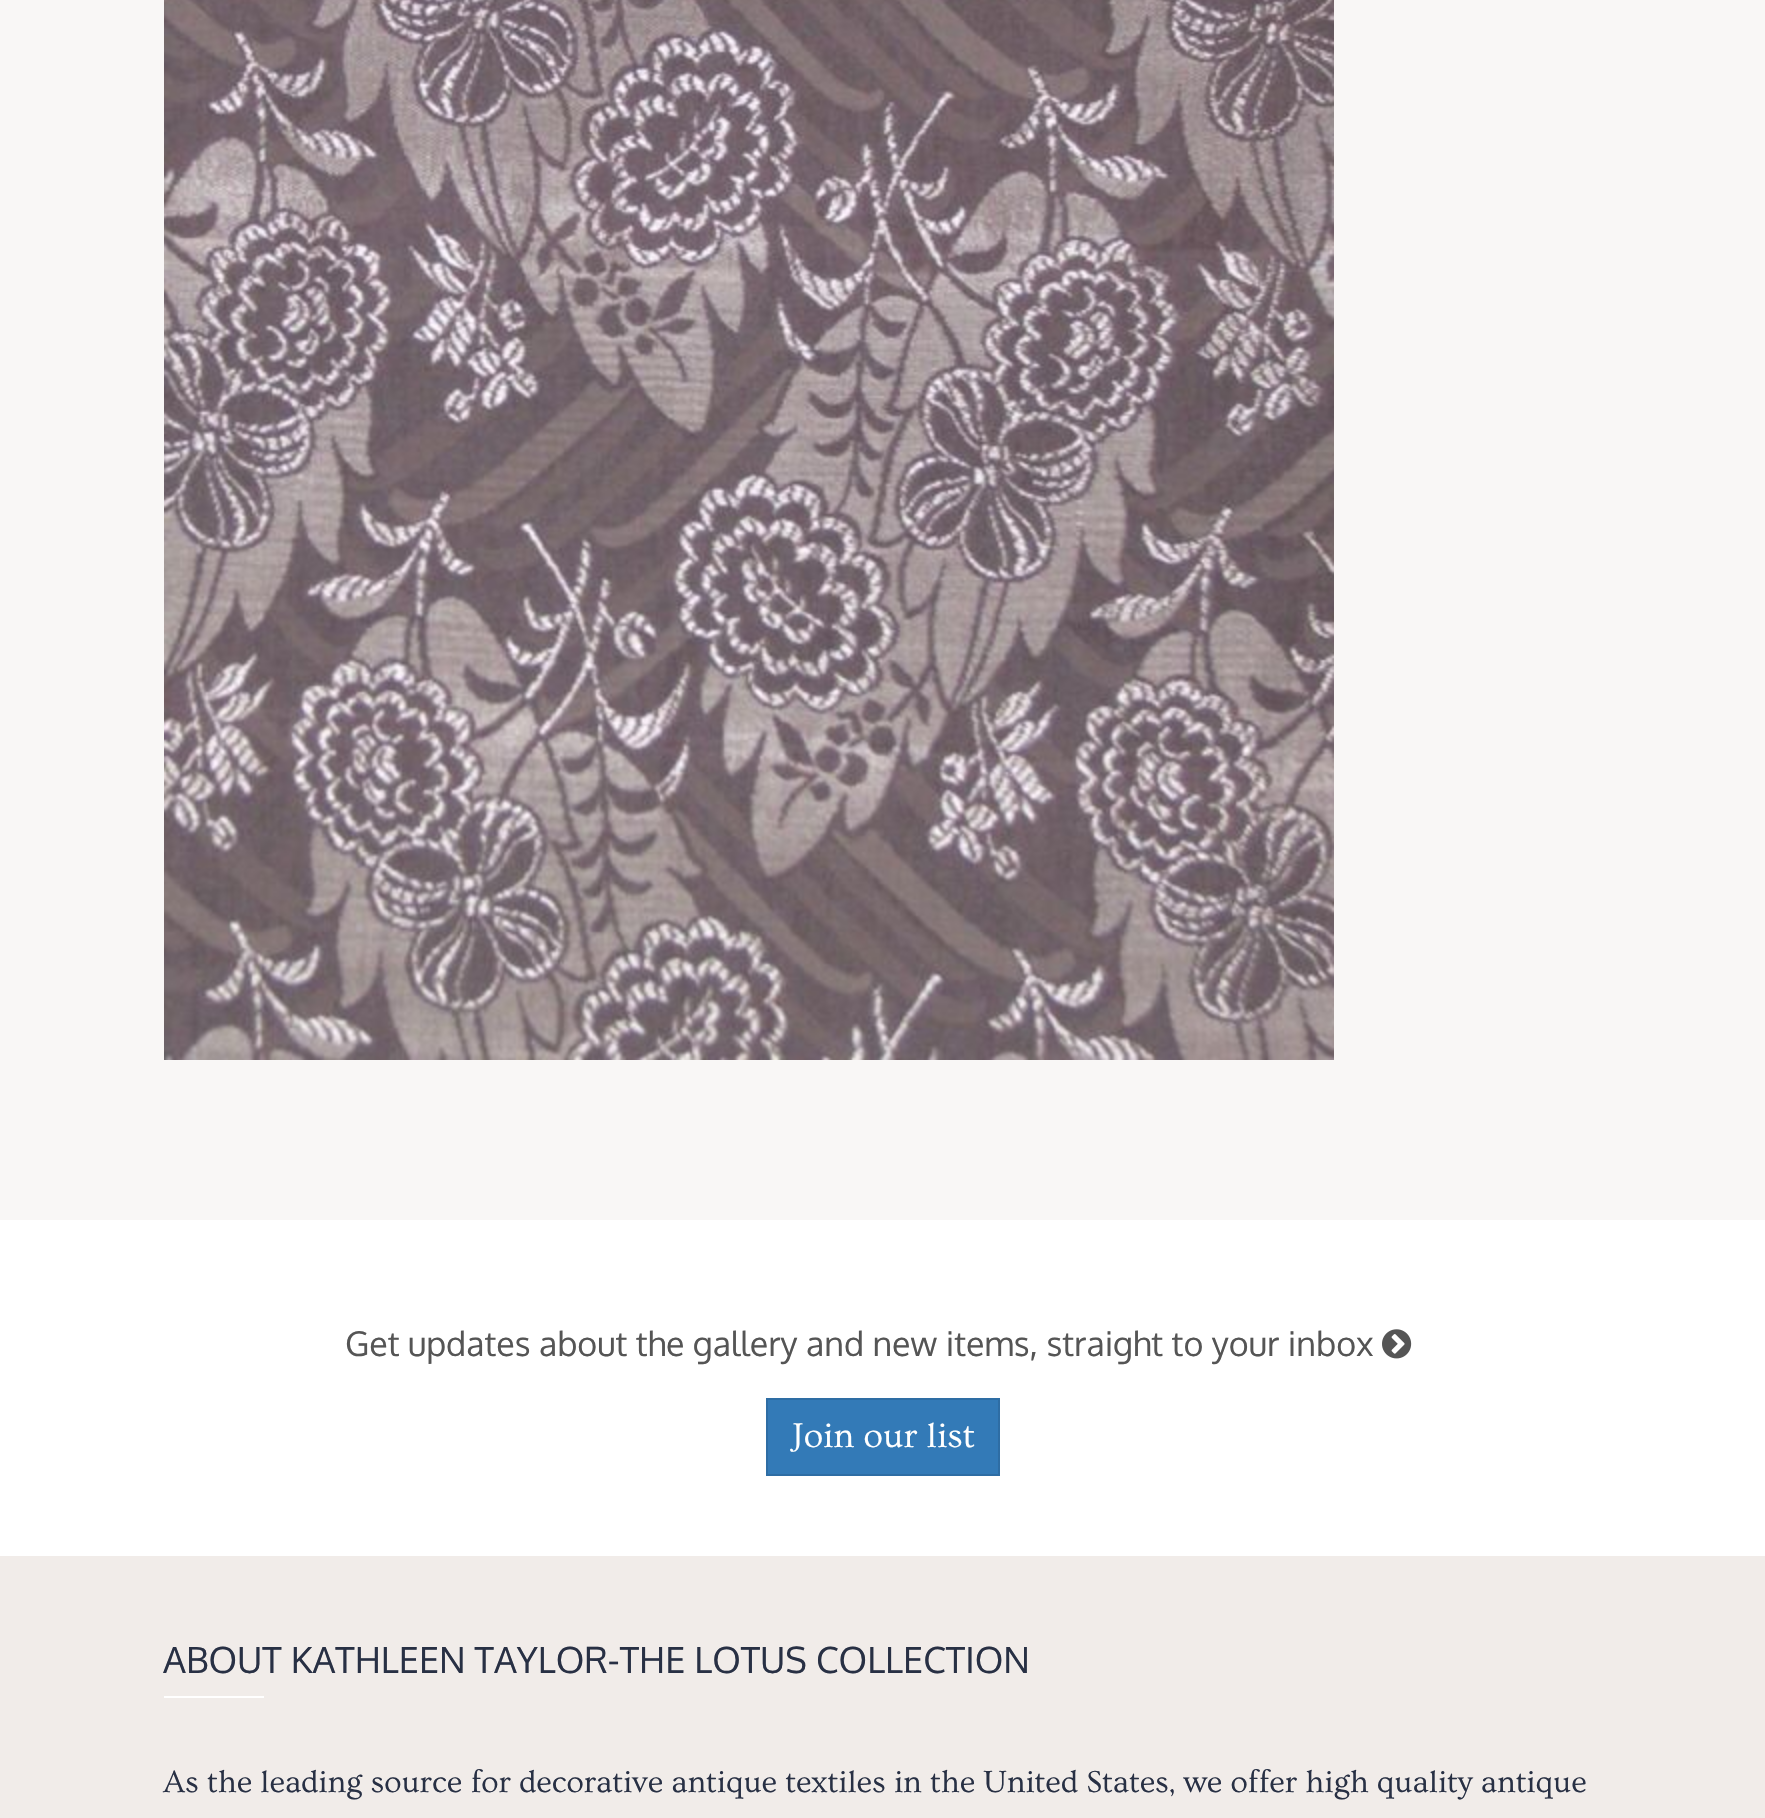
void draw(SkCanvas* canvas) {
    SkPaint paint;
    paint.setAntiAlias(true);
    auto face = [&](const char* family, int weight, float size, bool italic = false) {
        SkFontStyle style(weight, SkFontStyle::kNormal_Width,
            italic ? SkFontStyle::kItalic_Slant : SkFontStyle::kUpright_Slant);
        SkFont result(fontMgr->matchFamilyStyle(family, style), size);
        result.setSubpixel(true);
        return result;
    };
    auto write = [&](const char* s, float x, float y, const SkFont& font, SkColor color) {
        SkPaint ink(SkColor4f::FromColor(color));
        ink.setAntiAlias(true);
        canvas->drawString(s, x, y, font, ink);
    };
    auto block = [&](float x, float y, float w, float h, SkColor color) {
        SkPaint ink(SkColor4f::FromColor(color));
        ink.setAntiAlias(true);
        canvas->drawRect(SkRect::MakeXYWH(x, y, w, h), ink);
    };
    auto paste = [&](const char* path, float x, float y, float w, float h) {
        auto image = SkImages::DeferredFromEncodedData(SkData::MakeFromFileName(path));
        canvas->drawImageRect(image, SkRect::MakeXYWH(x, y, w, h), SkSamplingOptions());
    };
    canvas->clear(SkColorSetRGB(249, 247, 246));
    paste("pic1.png", 164, 0, 1170, 1060);
    block(0, 1220, 1765, 336, SK_ColorWHITE);
    auto kFont1 = face("Oxygen", 400, 34);
    write("Get updates about the gallery and new items, straight to your inbox", 345, 1356, kFont1, SkColorSetRGB(85, 85, 85));
    paste("pic2.png", 1382, 1329, 30, 30);
    paint.setColor(SkColorSetRGB(51, 122, 183));
    canvas->drawRect(SkRect::MakeXYWH(767, 1399, 232, 76), paint);
    paint.setStyle(SkPaint::kStroke_Style);
    paint.setStrokeWidth(2);
    paint.setColor(SkColorSetRGB(46, 109, 164));
    canvas->drawRect(SkRect::MakeXYWH(767, 1399, 232, 76), paint);
    auto kFont2 = face("Ovo", 400, 36);
    write("Join our list", 792, 1447, kFont2, SK_ColorWHITE);
    block(0, 1556, 1765, 262, SkColorSetRGB(241, 236, 233));
    auto kFont3 = face("Oxygen", 400, 36);
    write("ABOUT KATHLEEN TAYLOR-THE LOTUS COLLECTION", 163, 1673, kFont3, SkColorSetRGB(40, 48, 68));
    block(164, 1696, 100, 2, SK_ColorWHITE);
    auto kFont4 = face("Ovo", 400, 32);
    write("As the leading source for decorative antique textiles in the United States, we offer high quality antique", 163, 1792, kFont4, SkColorSetRGB(40, 48, 68));
}
